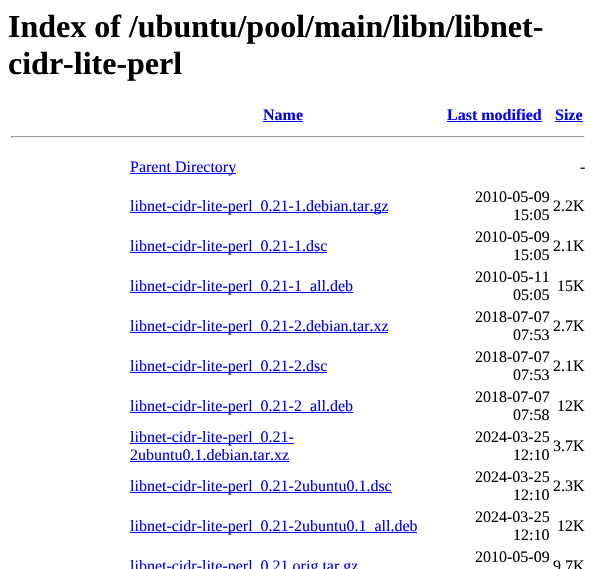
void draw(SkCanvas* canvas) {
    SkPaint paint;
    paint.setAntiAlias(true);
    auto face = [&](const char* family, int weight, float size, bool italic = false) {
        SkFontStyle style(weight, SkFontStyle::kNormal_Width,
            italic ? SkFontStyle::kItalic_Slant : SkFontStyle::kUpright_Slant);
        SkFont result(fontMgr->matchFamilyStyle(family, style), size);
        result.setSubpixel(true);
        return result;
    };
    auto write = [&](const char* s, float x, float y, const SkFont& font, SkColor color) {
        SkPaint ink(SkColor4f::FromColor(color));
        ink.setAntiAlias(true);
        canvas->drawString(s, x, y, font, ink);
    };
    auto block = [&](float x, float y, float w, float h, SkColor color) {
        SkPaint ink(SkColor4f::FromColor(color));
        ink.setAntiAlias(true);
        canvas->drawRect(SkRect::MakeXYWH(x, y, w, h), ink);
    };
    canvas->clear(SK_ColorWHITE);
    auto kFont1 = face("Liberation Serif", 700, 32);
    write("Index of /ubuntu/pool/main/libn/libnet-", 8, 37, kFont1, SK_ColorBLACK);
    write("cidr-lite-perl", 8, 74, kFont1, SK_ColorBLACK);
    auto kFont2 = face("Liberation Serif", 700, 16);
    write("Name", 263, 120, kFont2, SkColorSetRGB(0, 0, 238));
    block(263, 121, 40, 1, SkColorSetRGB(0, 0, 238));
    write("Last modified", 447, 120, kFont2, SkColorSetRGB(0, 0, 238));
    block(447, 121, 95, 1, SkColorSetRGB(0, 0, 238));
    write("Size", 555, 120, kFont2, SkColorSetRGB(0, 0, 238));
    block(555, 121, 28, 1, SkColorSetRGB(0, 0, 238));
    block(11, 136, 574, 1, SkColorSetRGB(159, 159, 159));
    block(584, 136, 1, 2, SkColorSetRGB(238, 238, 238));
    block(11, 137, 574, 1, SkColorSetRGB(238, 238, 238));
    block(11, 136, 1, 2, SkColorSetRGB(159, 159, 159));
    block(130, 173, 106, 1, SkColorSetRGB(0, 0, 238));
    auto kFont3 = face("Liberation Serif", 400, 16);
    write("Parent Directory", 130, 172, kFont3, SkColorSetRGB(0, 0, 238));
    write("-", 580, 172, kFont3, SK_ColorBLACK);
    block(130, 212, 258, 1, SkColorSetRGB(0, 0, 238));
    write("libnet-cidr-lite-perl_0.21-1.debian.tar.gz", 130, 211, kFont3, SkColorSetRGB(0, 0, 238));
    write("2010-05-09", 475, 202, kFont3, SK_ColorBLACK);
    write("15:05", 513, 220, kFont3, SK_ColorBLACK);
    write("2.2K", 553, 211, kFont3, SK_ColorBLACK);
    block(130, 252, 197, 1, SkColorSetRGB(0, 0, 238));
    write("libnet-cidr-lite-perl_0.21-1.dsc", 130, 251, kFont3, SkColorSetRGB(0, 0, 238));
    write("2010-05-09", 475, 242, kFont3, SK_ColorBLACK);
    write("15:05", 513, 260, kFont3, SK_ColorBLACK);
    write("2.1K", 553, 251, kFont3, SK_ColorBLACK);
    block(130, 292, 223, 1, SkColorSetRGB(0, 0, 238));
    write("libnet-cidr-lite-perl_0.21-1_all.deb", 130, 291, kFont3, SkColorSetRGB(0, 0, 238));
    write("2010-05-11", 475, 282, kFont3, SK_ColorBLACK);
    write("05:05", 513, 300, kFont3, SK_ColorBLACK);
    write("15K", 557, 291, kFont3, SK_ColorBLACK);
    block(130, 332, 258, 1, SkColorSetRGB(0, 0, 238));
    write("libnet-cidr-lite-perl_0.21-2.debian.tar.xz", 130, 331, kFont3, SkColorSetRGB(0, 0, 238));
    write("2018-07-07", 475, 322, kFont3, SK_ColorBLACK);
    write("07:53", 513, 340, kFont3, SK_ColorBLACK);
    write("2.7K", 553, 331, kFont3, SK_ColorBLACK);
    block(130, 372, 197, 1, SkColorSetRGB(0, 0, 238));
    write("libnet-cidr-lite-perl_0.21-2.dsc", 130, 371, kFont3, SkColorSetRGB(0, 0, 238));
    write("2018-07-07", 475, 362, kFont3, SK_ColorBLACK);
    write("07:53", 513, 380, kFont3, SK_ColorBLACK);
    write("2.1K", 553, 371, kFont3, SK_ColorBLACK);
    block(130, 412, 223, 1, SkColorSetRGB(0, 0, 238));
    write("libnet-cidr-lite-perl_0.21-2_all.deb", 130, 411, kFont3, SkColorSetRGB(0, 0, 238));
    write("2018-07-07", 475, 402, kFont3, SK_ColorBLACK);
    write("07:58", 513, 420, kFont3, SK_ColorBLACK);
    write("12K", 557, 411, kFont3, SK_ColorBLACK);
    block(130, 443, 164, 1, SkColorSetRGB(0, 0, 238));
    write("libnet-cidr-lite-perl_0.21-", 130, 442, kFont3, SkColorSetRGB(0, 0, 238));
    write("2ubuntu0.1.debian.tar.xz", 130, 460, kFont3, SkColorSetRGB(0, 0, 238));
    block(130, 461, 159, 1, SkColorSetRGB(0, 0, 238));
    write("2024-03-25", 475, 442, kFont3, SK_ColorBLACK);
    write("12:10", 513, 460, kFont3, SK_ColorBLACK);
    write("3.7K", 553, 451, kFont3, SK_ColorBLACK);
    block(130, 492, 262, 1, SkColorSetRGB(0, 0, 238));
    write("libnet-cidr-lite-perl_0.21-2ubuntu0.1.dsc", 130, 491, kFont3, SkColorSetRGB(0, 0, 238));
    write("2024-03-25", 475, 482, kFont3, SK_ColorBLACK);
    write("12:10", 513, 500, kFont3, SK_ColorBLACK);
    write("2.3K", 553, 491, kFont3, SK_ColorBLACK);
    block(130, 532, 287, 1, SkColorSetRGB(0, 0, 238));
    write("libnet-cidr-lite-perl_0.21-2ubuntu0.1_all.deb", 130, 531, kFont3, SkColorSetRGB(0, 0, 238));
    write("2024-03-25", 475, 522, kFont3, SK_ColorBLACK);
    write("12:10", 513, 540, kFont3, SK_ColorBLACK);
    write("12K", 557, 531, kFont3, SK_ColorBLACK);
    write("2010-05-09", 475, 562, kFont3, SK_ColorBLACK);
    write("libnet-cidr-lite-perl_0.21.orig.tar.gz", 130, 571, kFont3, SkColorSetRGB(0, 0, 238));
    write("9.7K", 553, 571, kFont3, SK_ColorBLACK);
}
